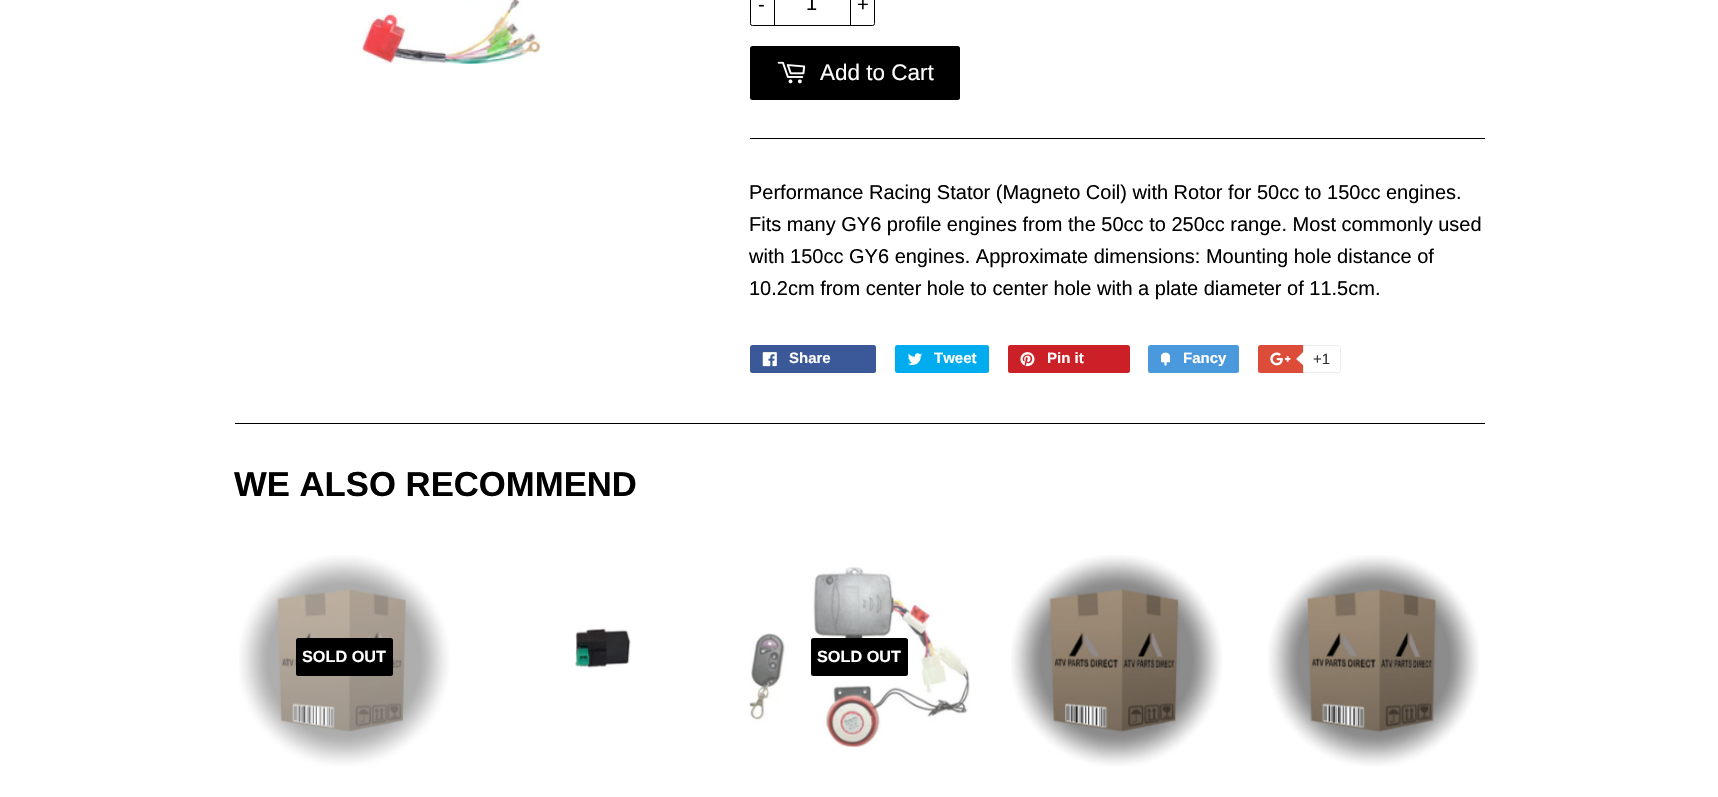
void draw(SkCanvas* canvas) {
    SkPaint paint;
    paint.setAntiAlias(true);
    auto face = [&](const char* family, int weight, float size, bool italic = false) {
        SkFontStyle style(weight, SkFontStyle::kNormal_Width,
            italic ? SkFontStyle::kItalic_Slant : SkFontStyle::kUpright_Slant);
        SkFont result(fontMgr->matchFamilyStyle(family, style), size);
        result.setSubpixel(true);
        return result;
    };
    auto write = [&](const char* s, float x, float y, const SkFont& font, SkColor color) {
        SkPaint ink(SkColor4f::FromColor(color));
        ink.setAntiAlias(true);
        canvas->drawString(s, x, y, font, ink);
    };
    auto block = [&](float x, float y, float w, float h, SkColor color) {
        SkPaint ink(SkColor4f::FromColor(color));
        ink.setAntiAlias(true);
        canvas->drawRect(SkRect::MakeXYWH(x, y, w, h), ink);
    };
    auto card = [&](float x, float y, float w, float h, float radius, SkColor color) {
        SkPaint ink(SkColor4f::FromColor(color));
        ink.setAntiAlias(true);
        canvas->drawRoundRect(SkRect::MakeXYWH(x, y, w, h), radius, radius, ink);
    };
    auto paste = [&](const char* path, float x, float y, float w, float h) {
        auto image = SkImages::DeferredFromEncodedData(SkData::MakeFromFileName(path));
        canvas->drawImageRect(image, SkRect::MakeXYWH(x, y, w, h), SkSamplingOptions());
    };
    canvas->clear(SK_ColorWHITE);
    paste("pic1.png", 362, 0, 178, 64);
    paint.setStyle(SkPaint::kStroke_Style);
    paint.setStrokeWidth(1);
    paint.setColor(SK_ColorBLACK);
    canvas->drawRoundRect(SkRect::MakeXYWH(750.5f, -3.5f, 124, 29), 2, 2, paint);
    block(774, 0, 1, 26, SK_ColorBLACK);
    auto kFont1 = face("Liberation Sans", 400, 20);
    write("-", 758, 11, kFont1, SK_ColorBLACK);
    write("1", 806, 10, kFont1, SK_ColorBLACK);
    block(850, 0, 1, 26, SK_ColorBLACK);
    write("+", 857, 11, kFont1, SK_ColorBLACK);
    card(750, 46, 210, 54, 2.5f, SK_ColorBLACK);
    paste("pic2.png", 777, 61, 29, 23);
    auto kFont2 = face("Liberation Sans", 400, 22.5f);
    write("Add to Cart", 820, 80, kFont2, SK_ColorWHITE);
    block(750, 138, 735, 1, SK_ColorBLACK);
    write("Performance Racing Stator (Magneto Coil) with Rotor for 50cc to 150cc engines.", 749, 199, kFont1, SK_ColorBLACK);
    write("Fits many GY6 profile engines from the 50cc to 250cc range. Most commonly used", 749, 231, kFont1, SK_ColorBLACK);
    write("with 150cc GY6 engines. Approximate dimensions: Mounting hole distance of", 749, 263, kFont1, SK_ColorBLACK);
    write("10.2cm from center hole to center hole with a plate diameter of 11.5cm.", 749, 295, kFont1, SK_ColorBLACK);
    card(750, 345, 126, 28, 2.5f, SkColorSetRGB(59, 89, 152));
    paste("pic3.png", 762, 352, 15, 15);
    auto kFont3 = face("Liberation Sans", 700, 15);
    write("Share", 789, 363, kFont3, SK_ColorWHITE);
    card(895, 345, 94, 28, 2.5f, SkColorSetRGB(0, 172, 237));
    paste("pic4.png", 908, 353, 14, 12);
    write("Tweet", 934, 363, kFont3, SK_ColorWHITE);
    card(1008, 345, 122, 28, 2.5f, SkColorSetRGB(203, 32, 39));
    paste("pic5.png", 1020, 352, 15, 15);
    write("Pin it", 1047, 363, kFont3, SK_ColorWHITE);
    card(1148, 345, 91, 28, 2.5f, SkColorSetRGB(73, 153, 220));
    paste("pic6.png", 1161, 352, 10, 14);
    write("Fancy", 1183, 363, kFont3, SK_ColorWHITE);
    card(1258, 345, 81, 28, 2.5f, SkColorSetRGB(221, 75, 57));
    paste("pic7.png", 1270, 352, 21, 14);
    paint.setStyle(SkPaint::kFill_Style);
    paint.setColor(SK_ColorWHITE);
    canvas->drawPath(SkPathBuilder().moveTo(1303.5f, 345.5f).lineTo(1338.5f, 345.5f).cubicTo(1339.5f, 345.5f, 1340.5f, 346.5f, 1340.5f, 347.5f).lineTo(1340.5f, 370.5f).cubicTo(1340.5f, 371.5f, 1339.5f, 372.5f, 1338.5f, 372.5f).lineTo(1303.5f, 372.5f).close().detach(), paint);
    paint.setStyle(SkPaint::kStroke_Style);
    paint.setColor(SkColorSetRGB(236, 236, 236));
    canvas->drawPath(SkPathBuilder().moveTo(1303.5f, 345.5f).lineTo(1338.5f, 345.5f).cubicTo(1339.5f, 345.5f, 1340.5f, 346.5f, 1340.5f, 347.5f).lineTo(1340.5f, 370.5f).cubicTo(1340.5f, 371.5f, 1339.5f, 372.5f, 1338.5f, 372.5f).lineTo(1303.5f, 372.5f).close().detach(), paint);
    paint.setStyle(SkPaint::kFill_Style);
    canvas->drawPath(SkPathBuilder().moveTo(1304, 351).lineTo(1304, 366).lineTo(1296, 359).close().detach(), paint);
    paint.setColor(SK_ColorWHITE);
    canvas->drawPath(SkPathBuilder().moveTo(1305, 351).lineTo(1305, 366).lineTo(1297.5f, 359).close().detach(), paint);
    auto kFont4 = face("Liberation Sans", 400, 15);
    write("+1", 1313, 364, kFont4, SkColorSetRGB(51, 51, 51));
    block(235, 423, 1250, 1, SK_ColorBLACK);
    auto kFont5 = face("Liberation Sans", 700, 34.7f);
    write("WE ALSO RECOMMEND", 234, 496, kFont5, SK_ColorBLACK);
    paste("pic8.png", 239, 555, 211, 211);
    card(296, 638, 97, 38, 2.5f, SK_ColorBLACK);
    auto kFont6 = face("Liberation Sans", 700, 16.25f);
    write("SOLD OUT", 302, 662, kFont6, SK_ColorWHITE);
    paste("pic9.png", 575, 627, 56, 43);
    paste("pic10.png", 749, 567, 221, 180);
    card(811, 638, 97, 38, 2.5f, SK_ColorBLACK);
    write("SOLD OUT", 817, 662, kFont6, SK_ColorWHITE);
    paste("pic11.png", 1011, 555, 211, 211);
    paste("pic12.png", 1268, 555, 211, 211);
}
